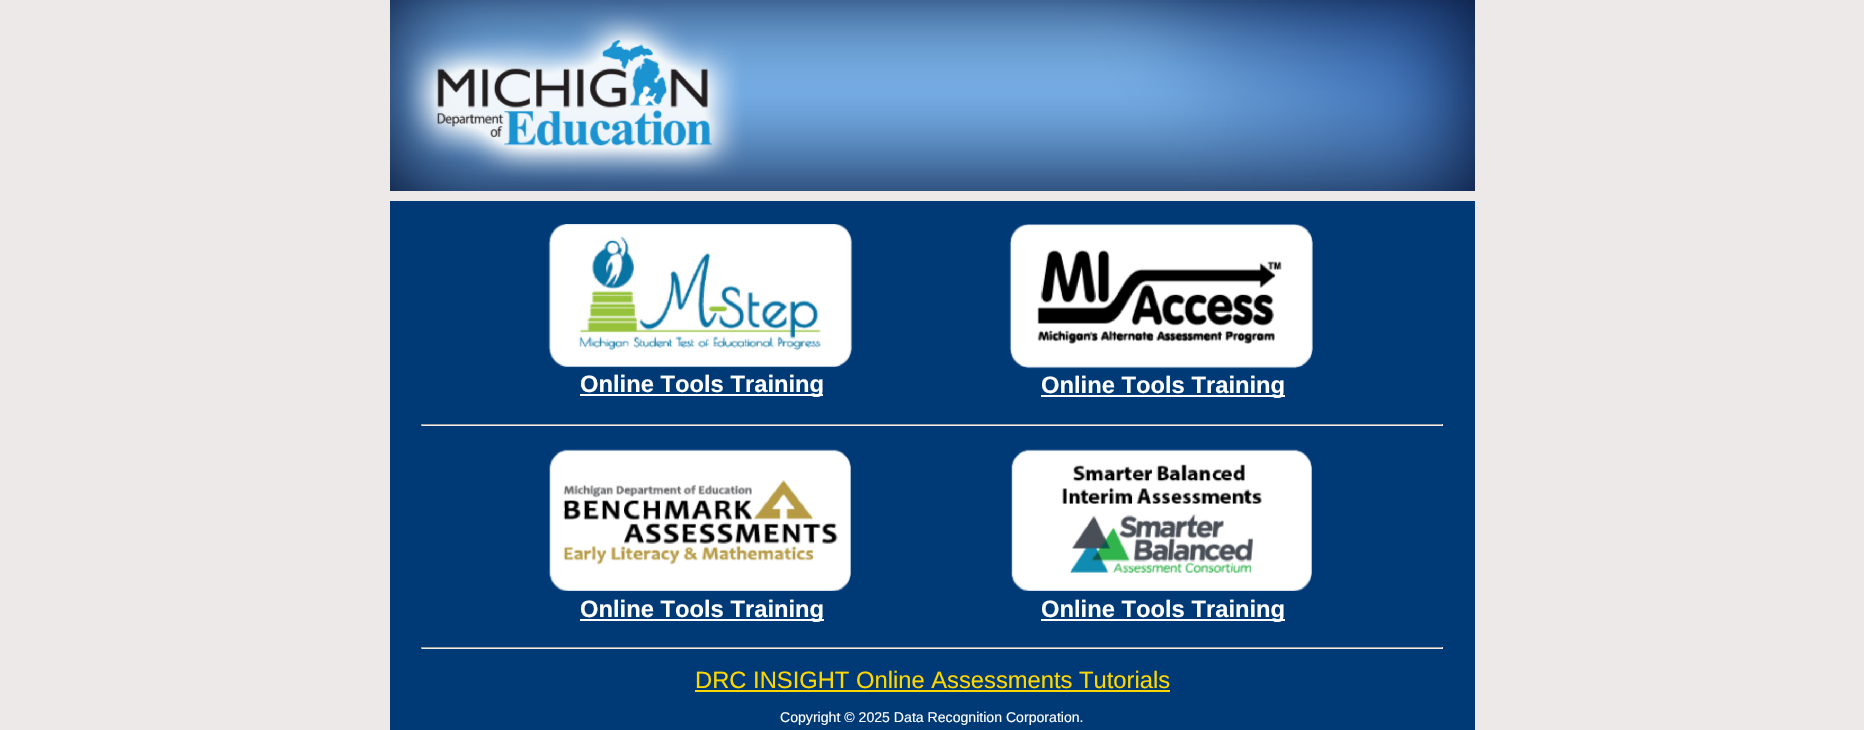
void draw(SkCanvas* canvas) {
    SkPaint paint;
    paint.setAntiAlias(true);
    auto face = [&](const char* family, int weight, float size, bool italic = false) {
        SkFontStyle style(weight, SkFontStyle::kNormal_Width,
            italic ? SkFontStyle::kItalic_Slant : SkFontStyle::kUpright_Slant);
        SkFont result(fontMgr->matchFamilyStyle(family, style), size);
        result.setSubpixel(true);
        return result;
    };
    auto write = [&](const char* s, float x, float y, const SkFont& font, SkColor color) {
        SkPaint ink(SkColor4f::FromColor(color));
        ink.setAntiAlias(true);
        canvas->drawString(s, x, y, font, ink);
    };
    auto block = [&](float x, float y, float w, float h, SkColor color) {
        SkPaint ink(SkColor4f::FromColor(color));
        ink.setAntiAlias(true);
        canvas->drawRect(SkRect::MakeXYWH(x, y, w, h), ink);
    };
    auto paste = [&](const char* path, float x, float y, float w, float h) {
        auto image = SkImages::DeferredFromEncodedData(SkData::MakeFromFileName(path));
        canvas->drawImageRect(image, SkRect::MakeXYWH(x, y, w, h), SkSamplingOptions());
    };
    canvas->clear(SkColorSetRGB(238, 233, 233));
    paste("pic1.png", 390, 0, 1085, 191);
    block(390, 201, 1085, 529, SkColorSetRGB(0, 58, 118));
    paste("pic2.png", 548, 224, 305, 144);
    block(580, 394, 243, 2, SK_ColorWHITE);
    auto kFont1 = face("Liberation Sans", 700, 23.75f);
    write("Online Tools Training", 580, 392, kFont1, SK_ColorWHITE);
    paste("pic3.png", 1009, 224, 304, 145);
    block(1041, 395, 244, 2, SK_ColorWHITE);
    write("Online Tools Training", 1041, 393, kFont1, SK_ColorWHITE);
    block(421, 424, 1022, 1, SkColorSetRGB(159, 159, 159));
    block(1442, 424, 1, 2, SkColorSetRGB(238, 238, 238));
    block(421, 425, 1022, 1, SkColorSetRGB(238, 238, 238));
    block(421, 424, 1, 2, SkColorSetRGB(159, 159, 159));
    paste("pic4.png", 549, 449, 302, 142);
    block(580, 619, 244, 2, SK_ColorWHITE);
    write("Online Tools Training", 580, 617, kFont1, SK_ColorWHITE);
    paste("pic5.png", 1011, 449, 301, 142);
    block(1041, 619, 244, 2, SK_ColorWHITE);
    write("Online Tools Training", 1041, 617, kFont1, SK_ColorWHITE);
    block(421, 647, 1022, 1, SkColorSetRGB(159, 159, 159));
    block(1442, 647, 1, 2, SkColorSetRGB(238, 238, 238));
    block(421, 648, 1022, 1, SkColorSetRGB(238, 238, 238));
    block(421, 647, 1, 2, SkColorSetRGB(159, 159, 159));
    auto kFont2 = face("Liberation Sans", 400, 23.75f);
    write("DRC INSIGHT Online Assessments Tutorials", 695, 688, kFont2, SkColorSetRGB(255, 215, 0));
    block(695, 690, 475, 2, SkColorSetRGB(255, 215, 0));
    auto kFont3 = face("Liberation Sans", 400, 14.1f);
    write("Copyright © 2025 Data Recognition Corporation.", 780, 722, kFont3, SK_ColorWHITE);
}
